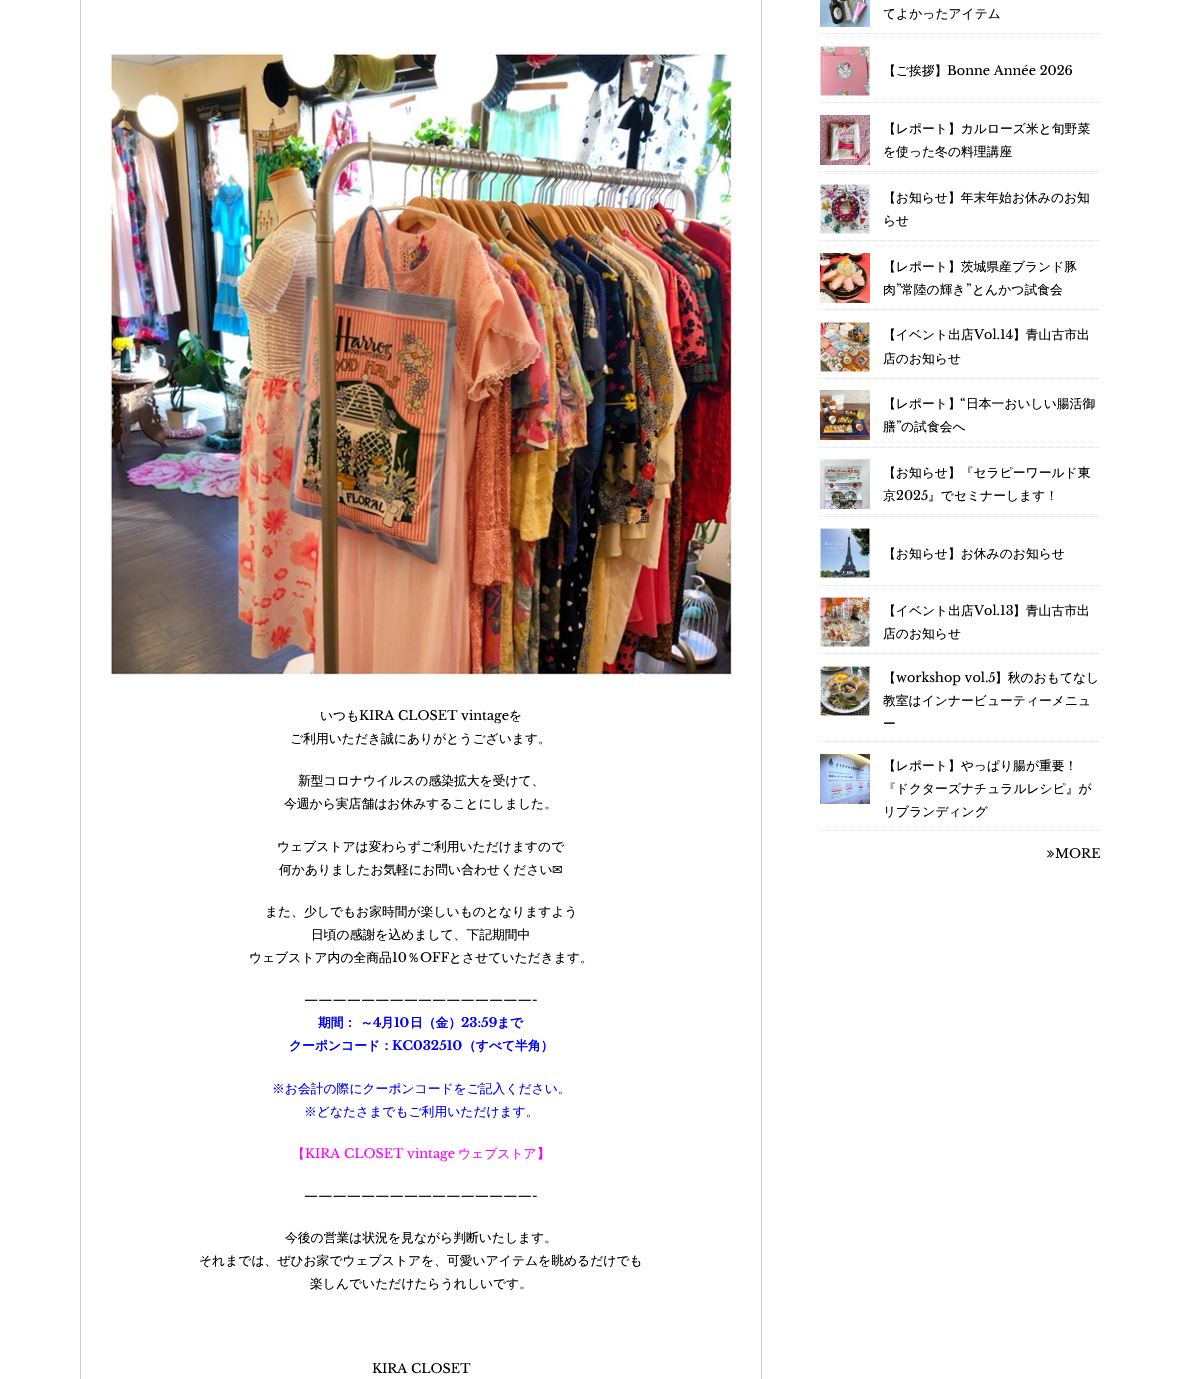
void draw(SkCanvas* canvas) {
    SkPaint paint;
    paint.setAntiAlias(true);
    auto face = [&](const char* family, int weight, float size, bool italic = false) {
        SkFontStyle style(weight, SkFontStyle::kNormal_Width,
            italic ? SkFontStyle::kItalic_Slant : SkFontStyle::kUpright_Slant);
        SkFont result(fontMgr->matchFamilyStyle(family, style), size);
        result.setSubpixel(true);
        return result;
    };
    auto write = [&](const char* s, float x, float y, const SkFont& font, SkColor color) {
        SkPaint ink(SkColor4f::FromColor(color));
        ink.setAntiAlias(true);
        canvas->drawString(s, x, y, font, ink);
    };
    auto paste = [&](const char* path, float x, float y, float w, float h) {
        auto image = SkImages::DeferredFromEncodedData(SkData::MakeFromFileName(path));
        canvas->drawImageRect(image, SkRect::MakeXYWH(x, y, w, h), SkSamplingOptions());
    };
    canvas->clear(SK_ColorWHITE);
    paint.setStyle(SkPaint::kStroke_Style);
    paint.setStrokeWidth(1);
    paint.setColor(SkColorSetRGB(221, 221, 221));
    paint.setPathEffect(SkDashPathEffect::Make({{1, 1}}, 0));
    canvas->drawPath(SkPathBuilder().moveTo(820, 33.5f).lineTo(1100, 33.5f).detach(), paint);
    paint.setPathEffect(nullptr);
    paste("pic1.png", 820, 0, 50, 27);
    auto kFont1 = face("WenQuanYi Zen Hei", 500, 12.8f);
    write("てよかったアイテム", 883, 18, kFont1, SK_ColorBLACK);
    paint.setPathEffect(SkDashPathEffect::Make({{1, 1}}, 0));
    canvas->drawPath(SkPathBuilder().moveTo(820, 102.5f).lineTo(1100, 102.5f).detach(), paint);
    paint.setPathEffect(nullptr);
    paste("pic2.png", 820, 46, 50, 50);
    write("【ご挨拶】", 883, 75, kFont1, SK_ColorBLACK);
    auto kFont2 = face("Libre Baskerville", 400, 12.8f);
    write("Bonne Année 2026", 947, 75, kFont2, SK_ColorBLACK);
    paint.setPathEffect(SkDashPathEffect::Make({{1, 1}}, 0));
    canvas->drawPath(SkPathBuilder().moveTo(820, 171.5f).lineTo(1100, 171.5f).detach(), paint);
    paint.setPathEffect(nullptr);
    paste("pic3.png", 820, 115, 50, 50);
    write("【レポート】カルローズ米と旬野菜", 883, 133, kFont1, SK_ColorBLACK);
    write("を使った冬の料理講座", 883, 156, kFont1, SK_ColorBLACK);
    paint.setPathEffect(SkDashPathEffect::Make({{1, 1}}, 0));
    canvas->drawPath(SkPathBuilder().moveTo(820, 240.5f).lineTo(1100, 240.5f).detach(), paint);
    paint.setPathEffect(nullptr);
    paste("pic4.png", 820, 184, 50, 50);
    write("【お知らせ】年末年始お休みのお知", 883, 202, kFont1, SK_ColorBLACK);
    write("らせ", 883, 225, kFont1, SK_ColorBLACK);
    paint.setPathEffect(SkDashPathEffect::Make({{1, 1}}, 0));
    canvas->drawPath(SkPathBuilder().moveTo(820, 309.5f).lineTo(1100, 309.5f).detach(), paint);
    paint.setPathEffect(nullptr);
    paste("pic5.png", 820, 253, 50, 50);
    write("【レポート】茨城県産ブランド豚", 883, 271, kFont1, SK_ColorBLACK);
    write("肉", 883, 294, kFont1, SK_ColorBLACK);
    write("”", 896, 294, kFont2, SK_ColorBLACK);
    write("常陸の輝き", 901, 294, kFont1, SK_ColorBLACK);
    write("”", 966, 294, kFont2, SK_ColorBLACK);
    write("とんかつ試食会", 972, 294, kFont1, SK_ColorBLACK);
    paint.setPathEffect(SkDashPathEffect::Make({{1, 1}}, 0));
    canvas->drawPath(SkPathBuilder().moveTo(820, 378.5f).lineTo(1100, 378.5f).detach(), paint);
    paint.setPathEffect(nullptr);
    paste("pic6.png", 820, 322, 50, 50);
    write("【イベント出店", 883, 339, kFont1, SK_ColorBLACK);
    write("Vol.14", 974, 339, kFont2, SK_ColorBLACK);
    write("】青山古市出", 1013, 339, kFont1, SK_ColorBLACK);
    write("店のお知らせ", 883, 363, kFont1, SK_ColorBLACK);
    paint.setPathEffect(SkDashPathEffect::Make({{1, 1}}, 0));
    canvas->drawPath(SkPathBuilder().moveTo(820, 447.5f).lineTo(1100, 447.5f).detach(), paint);
    paint.setPathEffect(nullptr);
    paste("pic7.png", 820, 390, 50, 50);
    write("【レポート】", 883, 408, kFont1, SK_ColorBLACK);
    write("“", 960, 408, kFont2, SK_ColorBLACK);
    write("日本一おいしい腸活御", 966, 408, kFont1, SK_ColorBLACK);
    write("膳", 883, 431, kFont1, SK_ColorBLACK);
    write("”", 896, 431, kFont2, SK_ColorBLACK);
    write("の試食会へ", 901, 431, kFont1, SK_ColorBLACK);
    paint.setPathEffect(SkDashPathEffect::Make({{1, 1}}, 0));
    canvas->drawPath(SkPathBuilder().moveTo(820, 516.5f).lineTo(1100, 516.5f).detach(), paint);
    paint.setPathEffect(nullptr);
    paste("pic8.png", 820, 459, 50, 50);
    write("【お知らせ】『セラピーワールド東", 883, 477, kFont1, SK_ColorBLACK);
    write("京", 883, 500, kFont1, SK_ColorBLACK);
    write("2025", 896, 500, kFont2, SK_ColorBLACK);
    write("』でセミナーします！", 928, 500, kFont1, SK_ColorBLACK);
    paint.setPathEffect(SkDashPathEffect::Make({{1, 1}}, 0));
    canvas->drawPath(SkPathBuilder().moveTo(820, 585.5f).lineTo(1100, 585.5f).detach(), paint);
    paint.setPathEffect(nullptr);
    paste("pic9.png", 820, 528, 50, 50);
    write("【お知らせ】お休みのお知らせ", 883, 558, kFont1, SK_ColorBLACK);
    paint.setPathEffect(SkDashPathEffect::Make({{1, 1}}, 0));
    canvas->drawPath(SkPathBuilder().moveTo(820, 653.5f).lineTo(1100, 653.5f).detach(), paint);
    paint.setPathEffect(nullptr);
    paste("pic10.png", 820, 597, 50, 50);
    write("【イベント出店", 883, 615, kFont1, SK_ColorBLACK);
    write("Vol.13", 974, 615, kFont2, SK_ColorBLACK);
    write("】青山古市出", 1013, 615, kFont1, SK_ColorBLACK);
    write("店のお知らせ", 883, 638, kFont1, SK_ColorBLACK);
    paint.setPathEffect(SkDashPathEffect::Make({{1, 1}}, 0));
    canvas->drawPath(SkPathBuilder().moveTo(820, 741.5f).lineTo(1100, 741.5f).detach(), paint);
    paint.setPathEffect(nullptr);
    paste("pic11.png", 820, 666, 50, 50);
    write("【", 883, 682, kFont1, SK_ColorBLACK);
    write("workshop vol.5", 896, 682, kFont2, SK_ColorBLACK);
    write("】秋のおもてなし", 995, 682, kFont1, SK_ColorBLACK);
    write("教室はインナービューティーメニュ", 883, 705, kFont1, SK_ColorBLACK);
    write("ー", 883, 728, kFont1, SK_ColorBLACK);
    paint.setPathEffect(SkDashPathEffect::Make({{1, 1}}, 0));
    canvas->drawPath(SkPathBuilder().moveTo(820, 830.5f).lineTo(1100, 830.5f).detach(), paint);
    paint.setPathEffect(nullptr);
    paste("pic12.png", 820, 754, 50, 50);
    write("【レポート】やっぱり腸が重要！", 883, 770, kFont1, SK_ColorBLACK);
    write("『ドクターズナチュラルレシピ』が", 883, 793, kFont1, SK_ColorBLACK);
    write("リブランディング", 883, 816, kFont1, SK_ColorBLACK);
    paste("pic13.png", 1047, 850, 7, 8);
    write("MORE", 1055, 858, kFont2, SK_ColorBLACK);
    paint.setColor(SkColorSetRGB(204, 204, 204));
    canvas->drawRect(SkRect::MakeXYWH(80.5f, -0.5f, 681, 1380), paint);
    paste("pic14.png", 105, 48, 632, 632);
    write("いつも", 320, 720, kFont1, SK_ColorBLACK);
    write("KIRA CLOSET vintage", 359, 720, kFont2, SK_ColorBLACK);
    write("を", 509, 720, kFont1, SK_ColorBLACK);
    write("ご利用いただき誠にありがとうございます。", 290, 743, kFont1, SK_ColorBLACK);
    write("新型コロナウイルスの感染拡大を受けて、", 298, 785, kFont1, SK_ColorBLACK);
    write("今週から実店舗はお休みすることにしました。", 284, 808, kFont1, SK_ColorBLACK);
    write("ウェブストアは変わらずご利用いただけますので", 277, 851, kFont1, SK_ColorBLACK);
    write("何かありましたお気軽にお問い合わせください", 279, 874, kFont1, SK_ColorBLACK);
    auto kFont3 = face("DejaVu Sans", 400, 12.8f);
    write("✉", 552, 874, kFont3, SK_ColorBLACK);
    write("また、少しでもお家時間が楽しいものとなりますよう", 265, 916, kFont1, SK_ColorBLACK);
    write("日頃の感謝を込めまして、下記期間中", 311, 939, kFont1, SK_ColorBLACK);
    write("ウェブストア内の全商品", 249, 962, kFont1, SK_ColorBLACK);
    write("10", 392, 962, kFont2, SK_ColorBLACK);
    write("％", 407, 962, kFont1, SK_ColorBLACK);
    write("OFF", 420, 962, kFont2, SK_ColorBLACK);
    write("とさせていただきます。", 449, 962, kFont1, SK_ColorBLACK);
    write("————————————————-", 304, 1004, kFont2, SK_ColorBLACK);
    auto kFont4 = face("WenQuanYi Zen Hei", 700, 12.8f);
    write("期間： ～", 318, 1027, kFont4, SkColorSetRGB(0, 0, 255));
    auto kFont5 = face("Libre Baskerville", 700, 12.8f);
    write("4", 373, 1027, kFont5, SkColorSetRGB(0, 0, 255));
    write("月", 381, 1027, kFont4, SkColorSetRGB(0, 0, 255));
    write("10", 394, 1027, kFont5, SkColorSetRGB(0, 0, 255));
    write("日（金）", 410, 1027, kFont4, SkColorSetRGB(0, 0, 255));
    write("23:59", 461, 1027, kFont5, SkColorSetRGB(0, 0, 255));
    write("まで", 497, 1027, kFont4, SkColorSetRGB(0, 0, 255));
    write("クーポンコード：", 289, 1050, kFont4, SkColorSetRGB(0, 0, 255));
    write("KC032510", 392, 1050, kFont5, SkColorSetRGB(0, 0, 255));
    write("（すべて半角）", 463, 1050, kFont4, SkColorSetRGB(0, 0, 255));
    write("※お会計の際にクーポンコードをご記入ください。", 272, 1093, kFont1, SkColorSetRGB(0, 0, 255));
    write("※どなたさまでもご利用いただけます。", 304, 1116, kFont1, SkColorSetRGB(0, 0, 255));
    write("【", 292, 1158, kFont1, SkColorSetRGB(255, 0, 255));
    write("KIRA CLOSET vintage", 305, 1158, kFont2, SkColorSetRGB(255, 0, 255));
    write("ウェブストア", 458, 1158, kFont1, SkColorSetRGB(255, 0, 255));
    write("】", 537, 1158, kFont4, SkColorSetRGB(255, 0, 255));
    write("————————————————-", 304, 1200, kFont2, SK_ColorBLACK);
    write("今後の営業は状況を見ながら判断いたします。", 285, 1242, kFont1, SK_ColorBLACK);
    write("それまでは、ぜひお家でウェブストアを、可愛いアイテムを眺めるだけでも", 199, 1265, kFont1, SK_ColorBLACK);
    write("楽しんでいただけたらうれしいです。", 310, 1288, kFont1, SK_ColorBLACK);
    write("KIRA CLOSET", 372, 1373, kFont2, SK_ColorBLACK);
}
